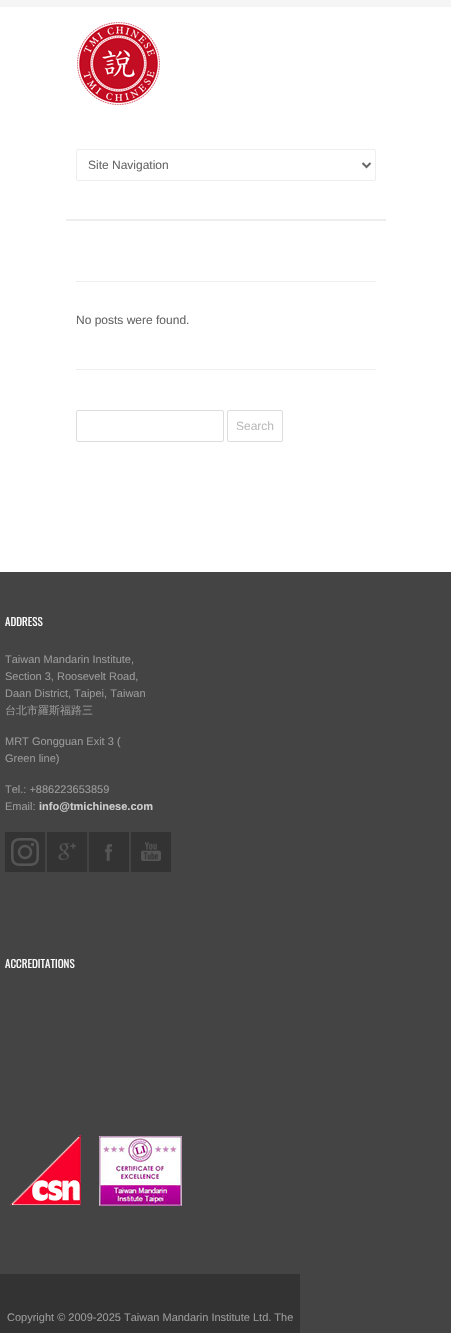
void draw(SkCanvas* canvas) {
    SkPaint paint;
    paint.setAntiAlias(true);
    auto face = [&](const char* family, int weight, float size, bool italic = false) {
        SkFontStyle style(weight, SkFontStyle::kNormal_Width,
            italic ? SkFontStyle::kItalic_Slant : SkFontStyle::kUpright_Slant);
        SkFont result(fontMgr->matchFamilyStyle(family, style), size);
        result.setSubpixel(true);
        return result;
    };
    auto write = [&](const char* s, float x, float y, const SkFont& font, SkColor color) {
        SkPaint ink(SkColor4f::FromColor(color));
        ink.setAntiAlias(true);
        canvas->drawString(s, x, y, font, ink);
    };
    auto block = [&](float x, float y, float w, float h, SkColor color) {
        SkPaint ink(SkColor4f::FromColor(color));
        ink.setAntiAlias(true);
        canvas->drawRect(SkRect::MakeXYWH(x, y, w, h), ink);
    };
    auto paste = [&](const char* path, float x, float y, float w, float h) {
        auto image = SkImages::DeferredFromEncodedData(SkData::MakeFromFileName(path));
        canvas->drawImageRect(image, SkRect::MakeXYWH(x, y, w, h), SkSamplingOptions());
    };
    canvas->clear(SK_ColorWHITE);
    block(0, 0, 451, 7, SkColorSetRGB(245, 245, 245));
    paste("pic1.png", 77, 22, 83, 83);
    paint.setStyle(SkPaint::kStroke_Style);
    paint.setStrokeWidth(1);
    paint.setColor(SkColorSetRGB(238, 238, 238));
    canvas->drawRoundRect(SkRect::MakeXYWH(76.5f, 149.5f, 299, 31), 1.5f, 1.5f, paint);
    paint.setStrokeWidth(2);
    paint.setColor(SkColorSetRGB(103, 103, 103));
    canvas->drawPath(SkPathBuilder().moveTo(362.5f, 163).lineTo(366.5f, 167).lineTo(370.5f, 163).detach(), paint);
    auto kFont1 = face("Liberation Sans", 400, 12);
    write("Site Navigation", 88, 169, kFont1, SkColorSetRGB(103, 103, 103));
    block(66, 219, 320, 2, SkColorSetRGB(238, 238, 238));
    block(76, 281, 300, 1, SkColorSetRGB(238, 238, 238));
    block(76, 369, 300, 1, SkColorSetRGB(238, 238, 238));
    write("No posts were found.", 76, 324, kFont1, SkColorSetRGB(103, 103, 103));
    paint.setStrokeWidth(1);
    paint.setColor(SkColorSetRGB(221, 221, 221));
    canvas->drawRoundRect(SkRect::MakeXYWH(76.5f, 410.5f, 147, 31), 1.5f, 1.5f, paint);
    canvas->drawRoundRect(SkRect::MakeXYWH(227.5f, 410.5f, 55, 31), 1.5f, 1.5f, paint);
    write("Search", 236, 430, kFont1, SkColorSetRGB(187, 187, 187));
    block(0, 572, 451, 761, SkColorSetRGB(68, 68, 68));
    auto kFont2 = face("Oswald", 400, 11);
    write("ADDRESS", 5, 626, kFont2, SK_ColorWHITE);
    auto kFont3 = face("Liberation Sans", 400, 11);
    write("Taiwan Mandarin Institute,", 5, 663, kFont3, SkColorSetRGB(153, 153, 153));
    write("Section 3, Roosevelt Road,", 5, 680, kFont3, SkColorSetRGB(153, 153, 153));
    write("Daan District, Taipei, Taiwan", 5, 697, kFont3, SkColorSetRGB(153, 153, 153));
    auto kFont4 = face("WenQuanYi Zen Hei", 500, 11);
    write("台北市羅斯福路三", 5, 714, kFont4, SkColorSetRGB(153, 153, 153));
    write("MRT Gongguan Exit 3 (", 5, 745, kFont3, SkColorSetRGB(153, 153, 153));
    write("Green line)", 5, 762, kFont3, SkColorSetRGB(153, 153, 153));
    write("Tel.: +886223653859", 5, 793, kFont3, SkColorSetRGB(153, 153, 153));
    write("Email:", 5, 810, kFont3, SkColorSetRGB(153, 153, 153));
    auto kFont5 = face("Liberation Sans", 700, 11);
    write("info@tmichinese.com", 39, 810, kFont5, SkColorSetRGB(204, 204, 204));
    block(5, 832, 40, 40, SkColorSetRGB(51, 51, 51));
    paste("pic2.png", 11, 838, 28, 28);
    block(47, 832, 40, 40, SkColorSetRGB(51, 51, 51));
    paste("pic3.png", 58, 843, 18, 17);
    block(89, 832, 40, 40, SkColorSetRGB(51, 51, 51));
    paste("pic4.png", 105, 844, 7, 17);
    block(131, 832, 40, 40, SkColorSetRGB(51, 51, 51));
    paste("pic5.png", 141, 842, 20, 19);
    write("ACCREDITATIONS", 5, 968, kFont2, SK_ColorWHITE);
    paste("pic6.png", 10, 1135, 172, 71);
    block(0, 1274, 300, 59, SkColorSetRGB(51, 51, 51));
    write("Copyright © 2009-2025 Taiwan Mandarin Institute Ltd. The", 7, 1321, kFont3, SkColorSetRGB(153, 153, 153));
}
